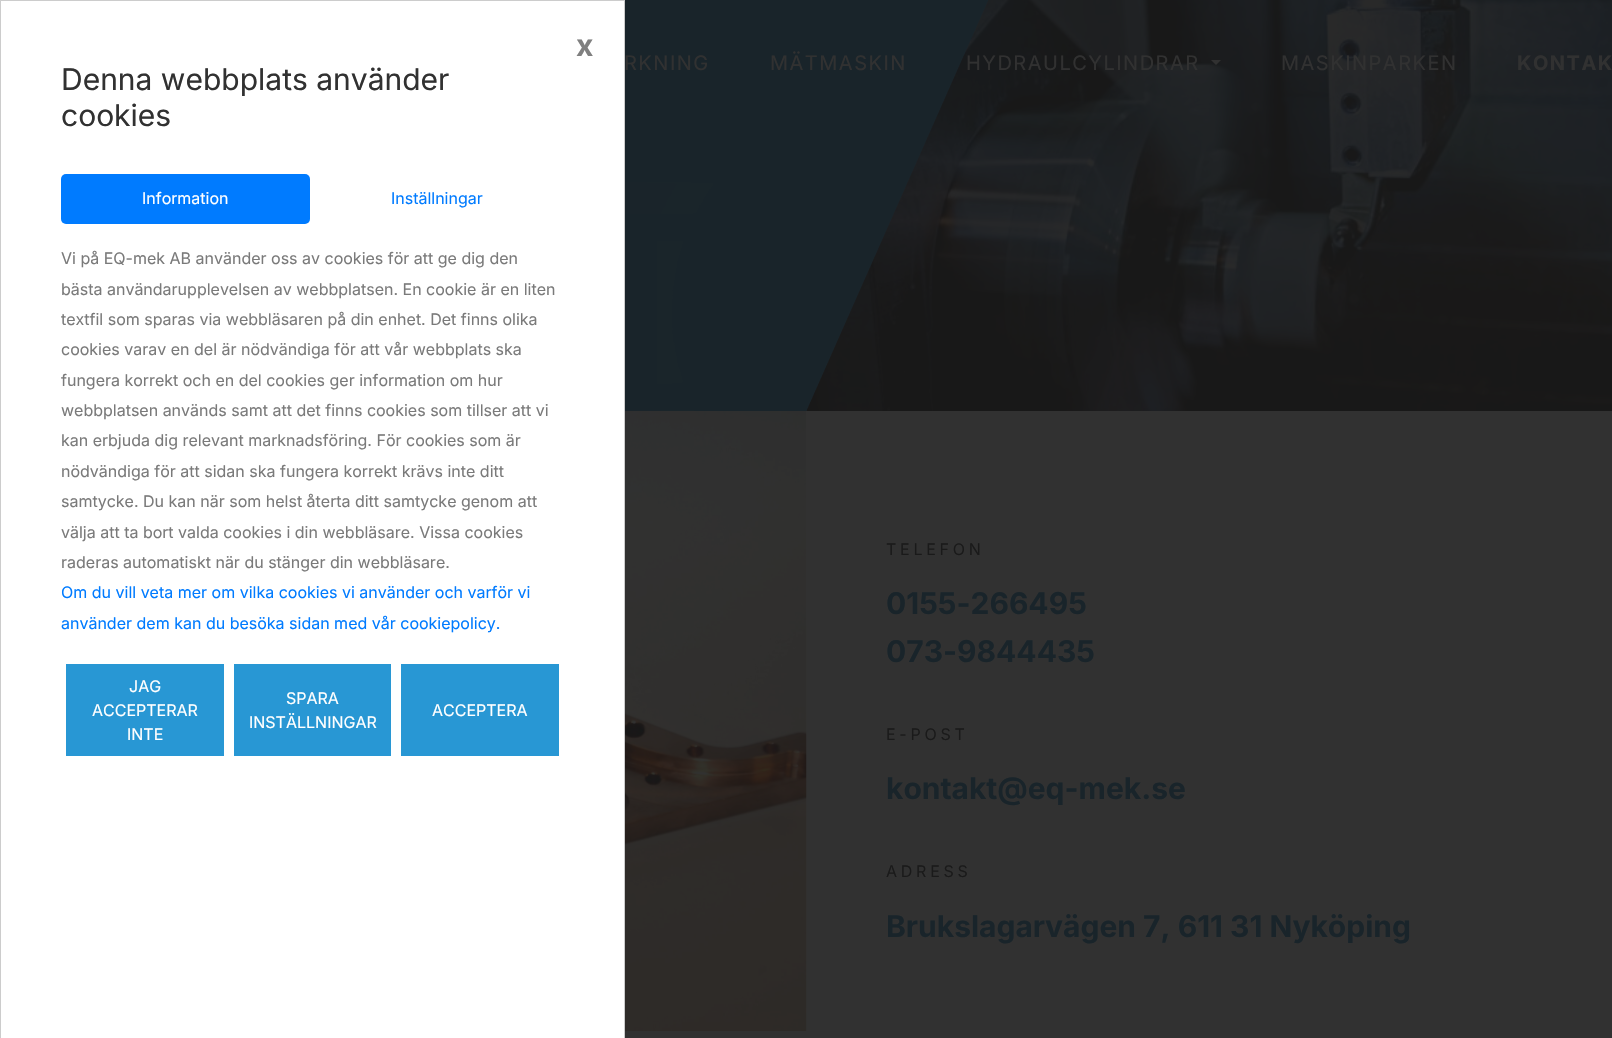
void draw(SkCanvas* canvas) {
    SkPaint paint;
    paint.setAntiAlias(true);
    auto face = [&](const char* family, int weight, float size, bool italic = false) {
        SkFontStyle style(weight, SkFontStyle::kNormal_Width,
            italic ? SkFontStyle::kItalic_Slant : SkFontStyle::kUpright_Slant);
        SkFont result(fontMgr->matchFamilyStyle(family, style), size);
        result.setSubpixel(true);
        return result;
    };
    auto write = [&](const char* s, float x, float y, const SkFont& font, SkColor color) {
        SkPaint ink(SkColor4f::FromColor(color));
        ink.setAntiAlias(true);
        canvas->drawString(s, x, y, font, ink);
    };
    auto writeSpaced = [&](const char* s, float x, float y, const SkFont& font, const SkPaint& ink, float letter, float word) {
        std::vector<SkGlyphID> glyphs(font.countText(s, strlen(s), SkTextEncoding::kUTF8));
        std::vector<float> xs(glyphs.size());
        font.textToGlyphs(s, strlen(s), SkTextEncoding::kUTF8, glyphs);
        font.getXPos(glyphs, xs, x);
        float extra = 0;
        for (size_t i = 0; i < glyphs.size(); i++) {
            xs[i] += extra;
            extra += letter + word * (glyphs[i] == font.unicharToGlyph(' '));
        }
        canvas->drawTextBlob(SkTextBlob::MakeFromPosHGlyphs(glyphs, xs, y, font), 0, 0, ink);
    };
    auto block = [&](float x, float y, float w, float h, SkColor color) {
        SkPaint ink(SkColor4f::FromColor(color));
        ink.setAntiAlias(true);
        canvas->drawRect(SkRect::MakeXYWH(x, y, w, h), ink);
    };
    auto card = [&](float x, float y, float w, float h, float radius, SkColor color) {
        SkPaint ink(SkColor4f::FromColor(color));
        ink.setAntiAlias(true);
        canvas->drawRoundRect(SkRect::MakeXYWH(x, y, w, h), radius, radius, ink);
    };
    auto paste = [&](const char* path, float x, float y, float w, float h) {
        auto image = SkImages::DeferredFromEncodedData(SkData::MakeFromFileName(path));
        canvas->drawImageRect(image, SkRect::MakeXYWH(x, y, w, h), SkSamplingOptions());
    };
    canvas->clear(SkColorSetRGB(49, 49, 49));
    block(0, 0, 625, 1038, SK_ColorWHITE);
    paint.setColor(SkColorSetRGB(204, 204, 204));
    canvas->drawPath(SkPathBuilder().moveTo(0, 0).lineTo(625, 0).lineTo(624, 1).lineTo(1, 1).close().detach(), paint);
    paint.setColor(SkColorSetARGB(51, 0, 0, 0));
    canvas->drawPath(SkPathBuilder().moveTo(625, 0).lineTo(625, 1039).lineTo(624, 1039).lineTo(624, 1).close().detach(), paint);
    canvas->drawPath(SkPathBuilder().moveTo(0, 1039).lineTo(0, 0).lineTo(1, 1).lineTo(1, 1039).close().detach(), paint);
    auto kFont1 = face("Inter", 700, 30);
    write("x", 576, 56, kFont1, SkColorSetRGB(128, 128, 128));
    auto kFont2 = face("Inter", 400, 30);
    write("Denna webbplats använder", 61, 90, kFont2, SkColorSetRGB(49, 49, 49));
    write("cookies", 61, 126, kFont2, SkColorSetRGB(49, 49, 49));
    card(61, 174, 249, 50, 5, SkColorSetRGB(0, 123, 255));
    auto kFont3 = face("Inter", 400, 16);
    write("Information", 142, 204, kFont3, SK_ColorWHITE);
    write("Inställningar", 391, 204, kFont3, SkColorSetRGB(0, 123, 255));
    write("Vi på EQ-mek AB använder oss av cookies för att ge dig den", 61, 264, kFont3, SkColorSetRGB(122, 122, 122));
    write("bästa användarupplevelsen av webbplatsen. En cookie är en liten", 61, 295, kFont3, SkColorSetRGB(122, 122, 122));
    write("textfil som sparas via webbläsaren på din enhet. Det finns olika", 61, 325, kFont3, SkColorSetRGB(122, 122, 122));
    write("cookies varav en del är nödvändiga för att vår webbplats ska", 61, 355, kFont3, SkColorSetRGB(122, 122, 122));
    write("fungera korrekt och en del cookies ger information om hur", 61, 386, kFont3, SkColorSetRGB(122, 122, 122));
    write("webbplatsen används samt att det finns cookies som tillser att vi", 61, 416, kFont3, SkColorSetRGB(122, 122, 122));
    write("kan erbjuda dig relevant marknadsföring. För cookies som är", 61, 446, kFont3, SkColorSetRGB(122, 122, 122));
    write("nödvändiga för att sidan ska fungera korrekt krävs inte ditt", 61, 477, kFont3, SkColorSetRGB(122, 122, 122));
    write("samtycke. Du kan när som helst återta ditt samtycke genom att", 61, 507, kFont3, SkColorSetRGB(122, 122, 122));
    write("välja att ta bort valda cookies i din webbläsare. Vissa cookies", 61, 538, kFont3, SkColorSetRGB(122, 122, 122));
    write("raderas automatiskt när du stänger din webbläsare.", 61, 568, kFont3, SkColorSetRGB(122, 122, 122));
    write("Om du vill veta mer om vilka cookies vi använder och varför vi", 61, 598, kFont3, SkColorSetRGB(0, 123, 255));
    write("använder dem kan du besöka sidan med vår cookiepolicy.", 61, 629, kFont3, SkColorSetRGB(0, 123, 255));
    block(66, 664, 158, 92, SkColorSetRGB(40, 151, 212));
    write("JAG", 129, 692, kFont3, SK_ColorWHITE);
    write("ACCEPTERAR", 92, 716, kFont3, SK_ColorWHITE);
    write("INTE", 127, 740, kFont3, SK_ColorWHITE);
    block(234, 664, 157, 92, SkColorSetRGB(40, 151, 212));
    write("SPARA", 286, 704, kFont3, SK_ColorWHITE);
    write("INSTÄLLNINGAR", 249, 728, kFont3, SK_ColorWHITE);
    block(401, 664, 158, 92, SkColorSetRGB(40, 151, 212));
    write("ACCEPTERA", 432, 716, kFont3, SK_ColorWHITE);
    block(625, 0, 364, 411, SkColorSetRGB(25, 36, 42));
    auto kFont4 = face("Inter", 400, 20);
    paint.setColor(SkColorSetRGB(49, 49, 49));
    writeSpaced("RKNING", 624, 70, kFont4, paint, 1.5f, 0);
    paste("pic2.png", 806, 0, 806, 411);
    writeSpaced("MÄTMASKIN", 770, 70, kFont4, paint, 1.5f, 0);
    writeSpaced("HYDRAULCYLINDRAR", 966, 70, kFont4, paint, 1.5f, 0);
    canvas->drawPath(SkPathBuilder().moveTo(1211, 60).lineTo(1221, 60).lineTo(1216, 65).close().detach(), paint);
    writeSpaced("MASKINPARKEN", 1281, 70, kFont4, paint, 1.5f, 0);
    auto kFont5 = face("Inter", 700, 20);
    writeSpaced("KONTAK", 1517, 70, kFont5, paint, 1.5f, 0);
    paste("pic1.png", 625, 182, 88, 229);
    paste("pic3.png", 625, 411, 182, 620);
    paint.setColor(SkColorSetRGB(26, 26, 26));
    writeSpaced("TELEFON", 886, 555, kFont3, paint, 3.75f, 0);
    write("0155-266495", 886, 614, kFont1, SkColorSetRGB(25, 36, 42));
    write("073-9844435", 886, 662, kFont1, SkColorSetRGB(25, 36, 42));
    writeSpaced("E-POST", 886, 740, kFont3, paint, 3.75f, 0);
    write("kontakt@eq-mek.se", 886, 799, kFont1, SkColorSetRGB(25, 36, 42));
    writeSpaced("ADRESS", 886, 877, kFont3, paint, 3.75f, 0);
    write("Brukslagarvägen 7, 611 31 Nyköping", 886, 937, kFont1, SkColorSetRGB(25, 36, 42));
}
